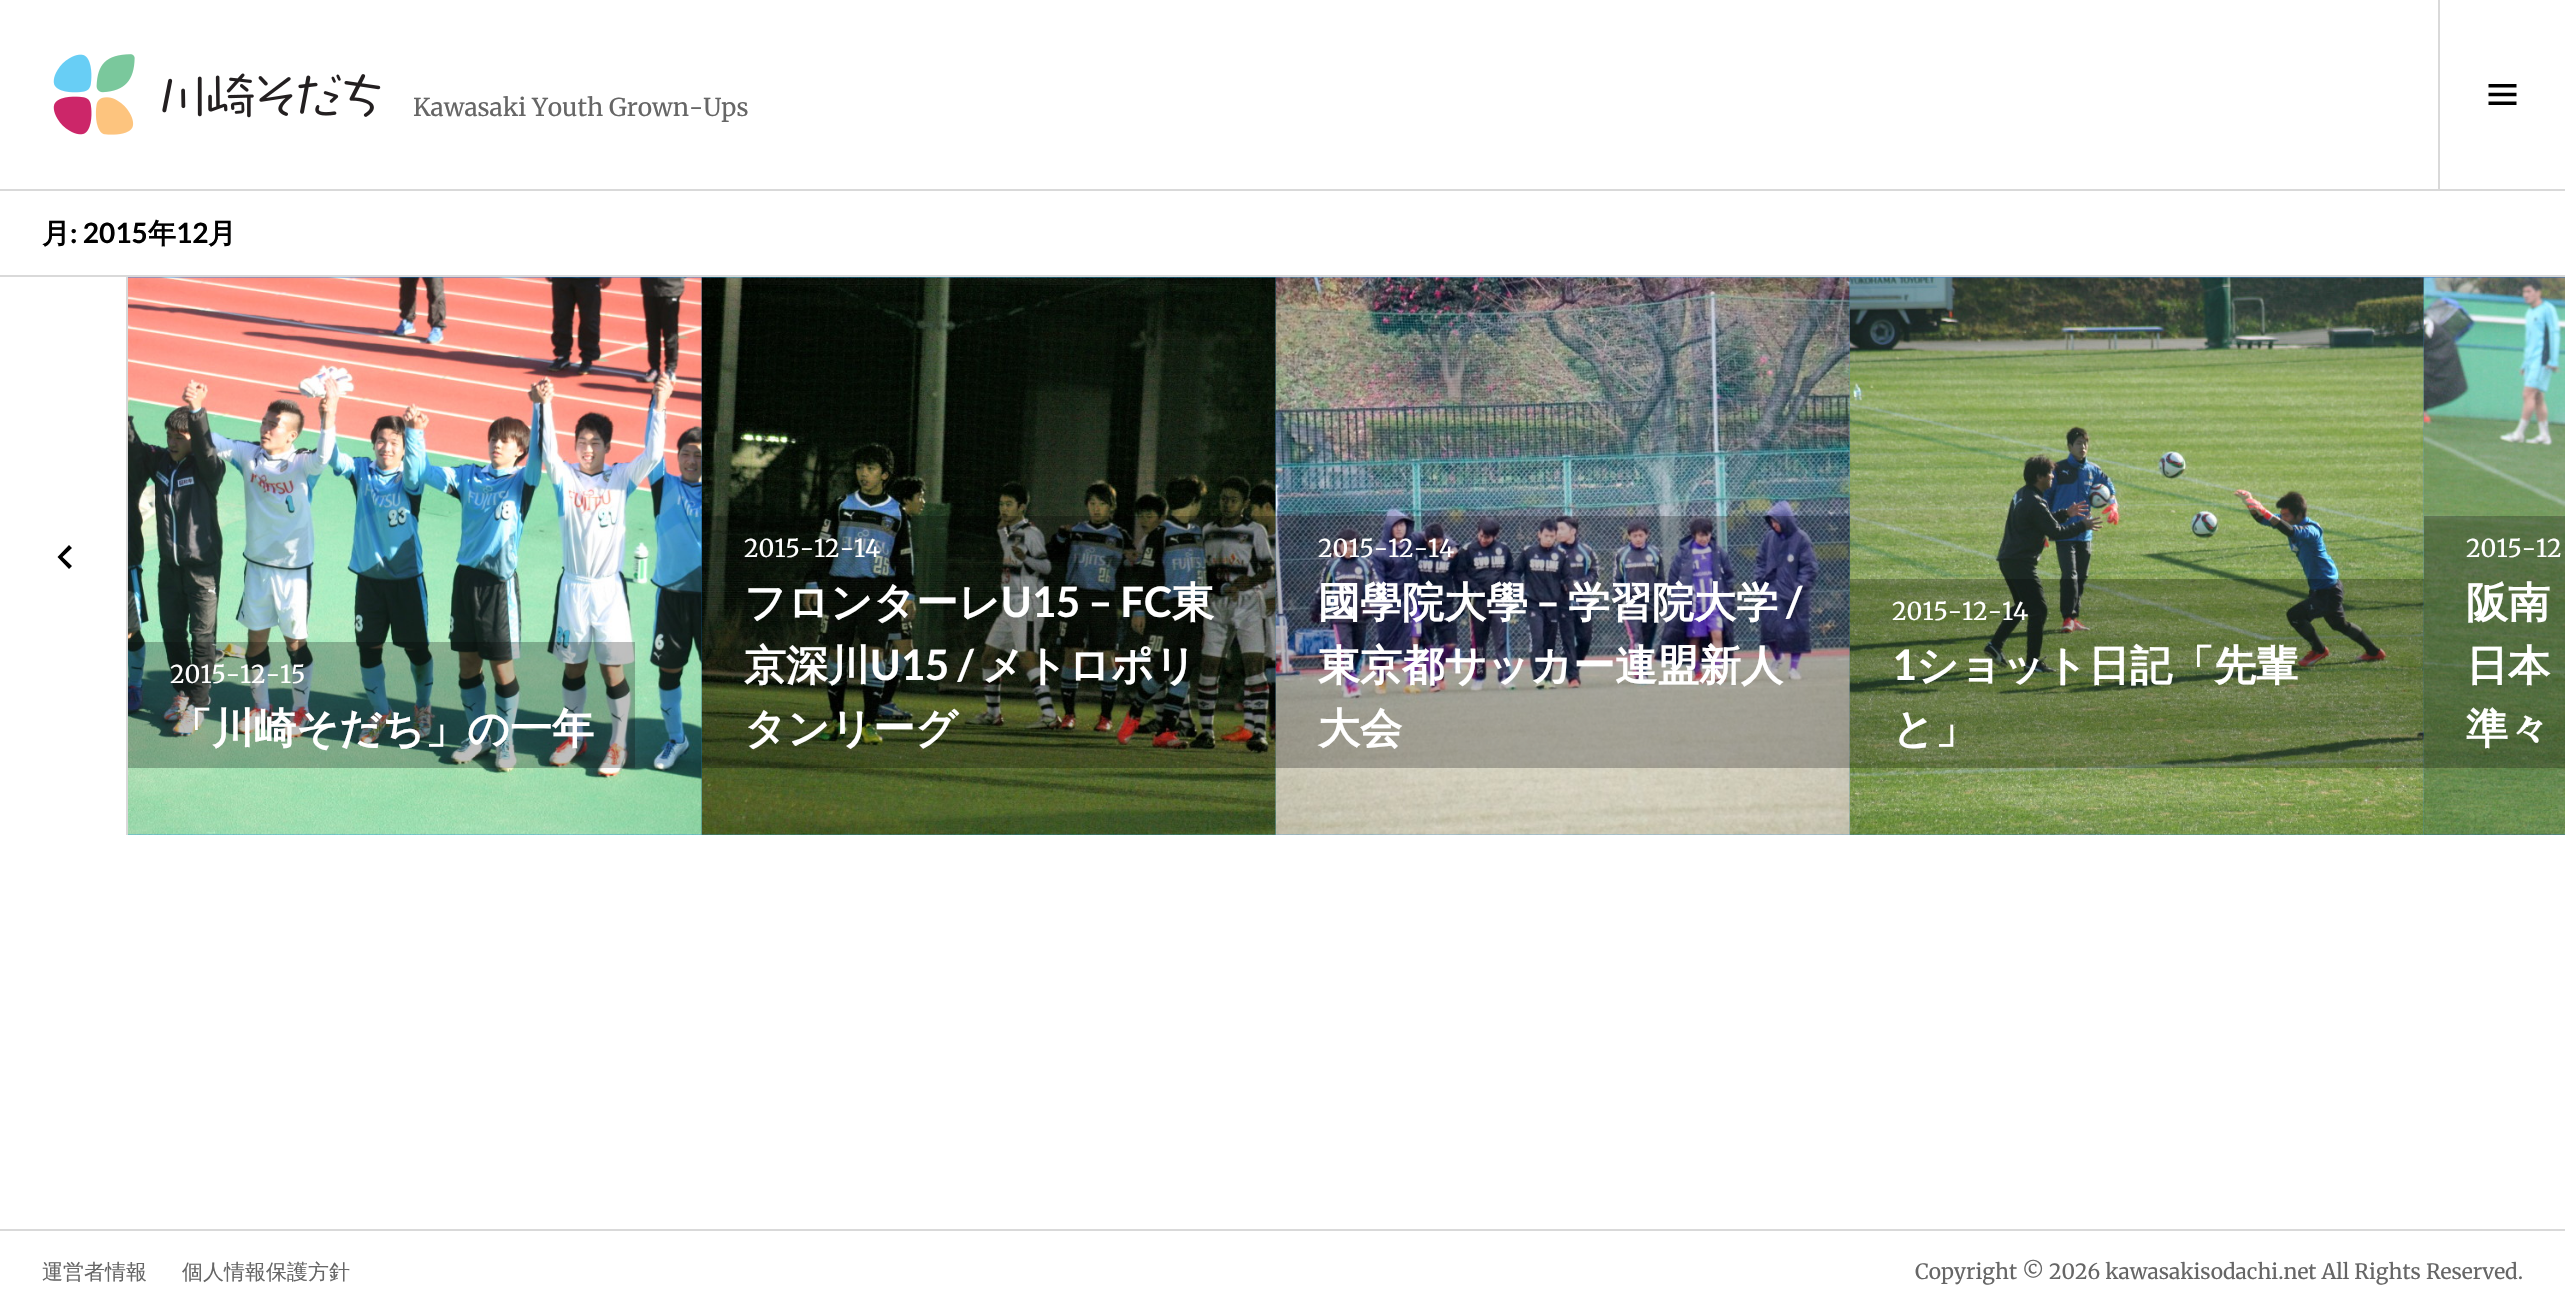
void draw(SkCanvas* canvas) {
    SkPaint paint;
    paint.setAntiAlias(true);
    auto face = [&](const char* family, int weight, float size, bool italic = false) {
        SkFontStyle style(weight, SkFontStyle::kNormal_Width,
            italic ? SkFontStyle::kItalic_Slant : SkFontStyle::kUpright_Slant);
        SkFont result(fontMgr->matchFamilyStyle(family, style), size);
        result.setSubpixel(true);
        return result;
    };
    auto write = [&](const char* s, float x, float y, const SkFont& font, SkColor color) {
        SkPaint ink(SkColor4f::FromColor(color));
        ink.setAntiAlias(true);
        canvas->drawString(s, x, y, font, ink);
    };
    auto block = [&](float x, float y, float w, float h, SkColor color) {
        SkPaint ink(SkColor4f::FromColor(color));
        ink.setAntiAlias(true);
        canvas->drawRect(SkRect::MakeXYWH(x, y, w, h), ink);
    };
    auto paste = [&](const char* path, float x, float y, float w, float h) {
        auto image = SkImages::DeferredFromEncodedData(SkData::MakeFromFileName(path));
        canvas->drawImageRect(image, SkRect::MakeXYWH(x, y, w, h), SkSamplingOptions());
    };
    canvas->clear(SK_ColorWHITE);
    block(0, 189, 2565, 2, SkColorSetRGB(217, 217, 217));
    paste("pic1.png", 53, 54, 328, 81);
    auto kFont1 = face("Merriweather", 400, 24.5f);
    write("Kawasaki Youth Grown-Ups", 413, 116, kFont1, SkColorSetRGB(102, 102, 102));
    block(2438, 0, 2, 189, SkColorSetRGB(217, 217, 217));
    paste("pic2.png", 2488, 84, 29, 21);
    block(0, 275, 2565, 2, SkColorSetRGB(217, 217, 217));
    auto kFont2 = face("WenQuanYi Zen Hei", 700, 28);
    write("月", 42, 243, kFont2, SK_ColorBLACK);
    auto kFont3 = face("Lato", 700, 28);
    write(": 2015", 70, 243, kFont3, SK_ColorBLACK);
    write("年", 148, 243, kFont2, SK_ColorBLACK);
    write("12", 176, 243, kFont3, SK_ColorBLACK);
    write("月", 208, 243, kFont2, SK_ColorBLACK);
    block(126, 277, 2, 558, SkColorSetRGB(217, 217, 217));
    paint.setColor(SK_ColorBLACK);
    canvas->drawPath(SkPathBuilder().moveTo(72, 548).lineTo(62.5f, 557).lineTo(72, 566).lineTo(69, 569).lineTo(57.5f, 557).lineTo(69, 545).close().detach(), paint);
    block(128, 277, 574, 558, SkColorSetRGB(0, 136, 255));
    paste("pic3.png", 128, 277, 574, 558);
    block(128, 642, 507, 126, SkColorSetARGB(64, 0, 0, 0));
    write("2015-12-15", 170, 683, kFont1, SK_ColorWHITE);
    auto kFont4 = face("WenQuanYi Zen Hei", 700, 42);
    write("「川崎そだち」の一年", 170, 743, kFont4, SK_ColorWHITE);
    block(702, 277, 574, 558, SkColorSetRGB(33, 183, 254));
    paste("pic4.png", 701, 277, 575, 558);
    block(1276, 277, 574, 558, SkColorSetRGB(59, 163, 252));
    paste("pic5.png", 1275, 277, 575, 558);
    block(702, 516, 574, 252, SkColorSetARGB(64, 0, 0, 0));
    write("2015-12-14", 744, 557, kFont1, SK_ColorWHITE);
    write("フロンターレ", 744, 617, kFont4, SK_ColorWHITE);
    auto kFont5 = face("Lato", 700, 42);
    write("U15 – FC", 1001, 617, kFont5, SK_ColorWHITE);
    write("東", 1172, 617, kFont4, SK_ColorWHITE);
    write("京深川", 744, 680, kFont4, SK_ColorWHITE);
    write("U15 /", 870, 680, kFont5, SK_ColorWHITE);
    write("メトロポリ", 982, 680, kFont4, SK_ColorWHITE);
    write("タンリーグ", 744, 743, kFont4, SK_ColorWHITE);
    block(1850, 277, 574, 558, SkColorSetRGB(42, 148, 255));
    paste("pic6.png", 1849, 277, 575, 558);
    block(1276, 516, 574, 252, SkColorSetARGB(64, 0, 0, 0));
    write("2015-12-14", 1318, 557, kFont1, SK_ColorWHITE);
    write("國學院大學", 1318, 617, kFont4, SK_ColorWHITE);
    write("–", 1536, 617, kFont5, SK_ColorWHITE);
    write("学習院大学", 1568, 617, kFont4, SK_ColorWHITE);
    write("/", 1786, 617, kFont5, SK_ColorWHITE);
    write("東京都サッカー連盟新人", 1318, 680, kFont4, SK_ColorWHITE);
    write("大会", 1318, 743, kFont4, SK_ColorWHITE);
    block(2424, 277, 141, 558, SkColorSetRGB(28, 113, 233));
    paste("pic7.png", 2423, 277, 142, 558);
    block(1850, 579, 574, 189, SkColorSetARGB(64, 0, 0, 0));
    write("2015-12-14", 1892, 620, kFont1, SK_ColorWHITE);
    write("1", 1892, 680, kFont5, SK_ColorWHITE);
    write("ショット日記「先輩", 1916, 680, kFont4, SK_ColorWHITE);
    write("と」", 1892, 743, kFont4, SK_ColorWHITE);
    block(2424, 516, 141, 252, SkColorSetARGB(64, 0, 0, 0));
    write("2015-12", 2466, 557, kFont1, SK_ColorWHITE);
    write("阪南", 2466, 617, kFont4, SK_ColorWHITE);
    write("日本", 2466, 680, kFont4, SK_ColorWHITE);
    write("準々", 2466, 743, kFont4, SK_ColorWHITE);
    block(0, 1229, 2565, 2, SkColorSetRGB(217, 217, 217));
    auto kFont6 = face("WenQuanYi Zen Hei", 500, 21);
    write("運営者情報", 42, 1279, kFont6, SkColorSetRGB(102, 102, 102));
    write("個人情報保護方針", 182, 1279, kFont6, SkColorSetRGB(102, 102, 102));
    auto kFont7 = face("Merriweather", 400, 21);
    write("Copyright © 2026 kawasakisodachi.net All Rights Reserved.", 1915, 1279, kFont7, SkColorSetRGB(102, 102, 102));
}
